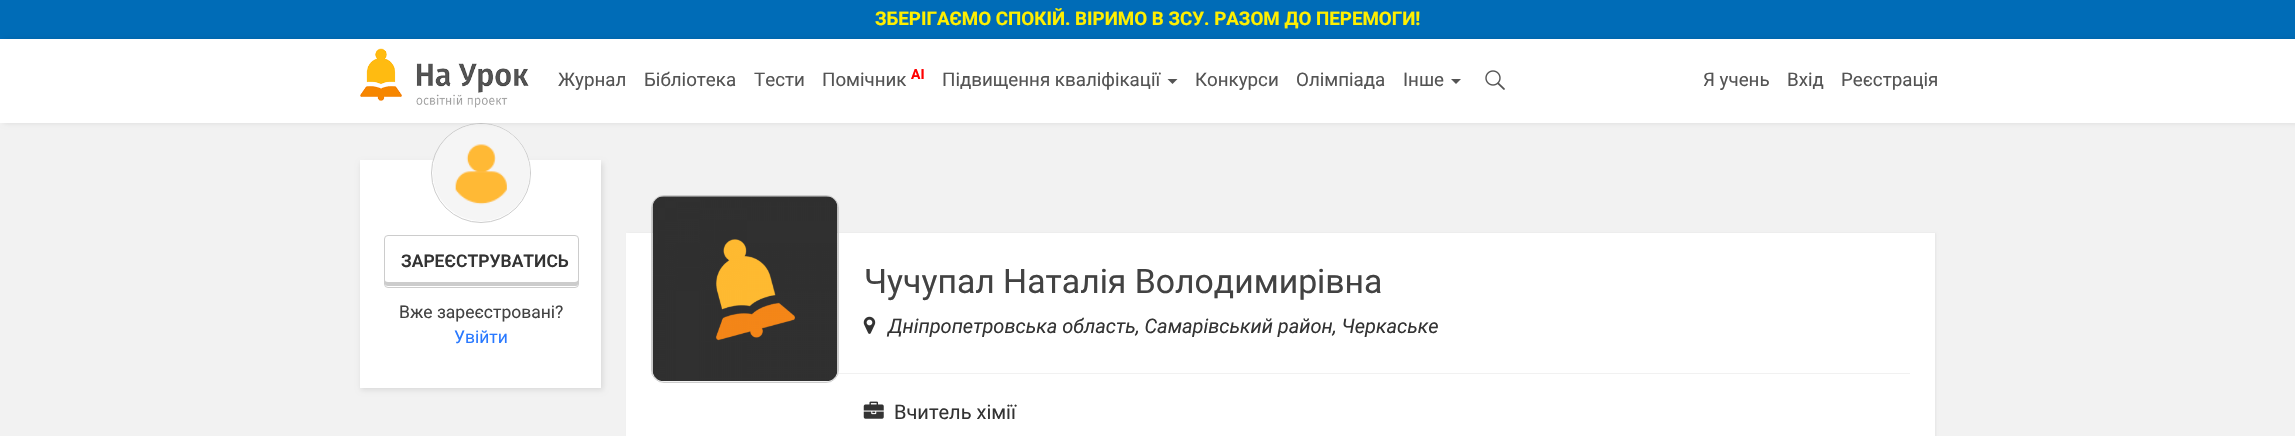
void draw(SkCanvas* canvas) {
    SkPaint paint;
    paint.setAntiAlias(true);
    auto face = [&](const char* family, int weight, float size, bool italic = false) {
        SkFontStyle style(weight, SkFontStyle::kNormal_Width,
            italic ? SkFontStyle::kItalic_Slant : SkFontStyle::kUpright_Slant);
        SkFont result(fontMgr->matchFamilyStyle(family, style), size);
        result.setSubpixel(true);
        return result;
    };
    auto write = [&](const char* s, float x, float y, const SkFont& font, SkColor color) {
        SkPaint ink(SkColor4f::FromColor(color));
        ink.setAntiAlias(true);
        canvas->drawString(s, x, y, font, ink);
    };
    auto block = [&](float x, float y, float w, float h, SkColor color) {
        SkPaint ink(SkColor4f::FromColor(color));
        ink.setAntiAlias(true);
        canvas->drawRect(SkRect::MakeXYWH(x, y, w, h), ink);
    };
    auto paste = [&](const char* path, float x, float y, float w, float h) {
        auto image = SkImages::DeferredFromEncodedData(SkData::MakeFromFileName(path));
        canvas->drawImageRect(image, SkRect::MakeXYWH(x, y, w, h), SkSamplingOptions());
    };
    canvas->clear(SkColorSetRGB(242, 242, 242));
    block(0, 0, 2295, 39, SkColorSetRGB(0, 108, 183));
    auto kFont1 = face("Roboto", 700, 18.75f);
    write("ЗБЕРІГАЄМО СПОКІЙ. ВІРИМО В ЗСУ. РАЗОМ ДО ПЕРЕМОГИ!", 875, 25, kFont1, SkColorSetRGB(255, 239, 0));
    paint.setColor(SkColorSetARGB(26, 0, 0, 0));
    paint.setMaskFilter(SkMaskFilter::MakeBlur(kNormal_SkBlurStyle, 2.5f));
    canvas->drawRect(SkRect::MakeXYWH(361, 163, 242, 227), paint);
    paint.setMaskFilter(nullptr);
    block(360, 160, 241, 228, SK_ColorWHITE);
    paint.setStyle(SkPaint::kStroke_Style);
    paint.setStrokeWidth(1);
    paint.setColor(SkColorSetRGB(204, 204, 204));
    canvas->drawCircle(481, 173, 49.5f, paint);
    paste("pic3.png", 433, 124, 97, 97);
    paint.setStyle(SkPaint::kFill_Style);
    paint.setColor(SkColorSetARGB(26, 0, 0, 0));
    paint.setMaskFilter(SkMaskFilter::MakeBlur(kNormal_SkBlurStyle, 2.5f));
    canvas->drawRect(SkRect::MakeXYWH(4, 39, 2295, 84), paint);
    paint.setMaskFilter(nullptr);
    block(0, 39, 2295, 84, SK_ColorWHITE);
    paste("pic1.png", 360, 48, 169, 60);
    auto kFont2 = face("Roboto", 400, 18.75f);
    write("Журнал", 558, 86, kFont2, SkColorSetRGB(84, 84, 84));
    write("Бібліотека", 644, 86, kFont2, SkColorSetRGB(84, 84, 84));
    write("Тести", 754, 86, kFont2, SkColorSetRGB(84, 84, 84));
    write("Помічник", 822, 86, kFont2, SkColorSetRGB(84, 84, 84));
    auto kFont3 = face("Roboto", 700, 14);
    write("AI", 911, 79, kFont3, SkColorSetRGB(255, 0, 0));
    write("Підвищення кваліфікації", 942, 86, kFont2, SkColorSetRGB(84, 84, 84));
    paint.setColor(SkColorSetRGB(84, 84, 84));
    canvas->drawPath(SkPathBuilder().moveTo(1167.5f, 79).lineTo(1177.5f, 79).lineTo(1172.5f, 84).close().detach(), paint);
    write("Конкурси", 1195, 86, kFont2, SkColorSetRGB(84, 84, 84));
    write("Олімпіада", 1296, 86, kFont2, SkColorSetRGB(84, 84, 84));
    write("Інше", 1403, 86, kFont2, SkColorSetRGB(84, 84, 84));
    canvas->drawPath(SkPathBuilder().moveTo(1451, 79).lineTo(1461, 79).lineTo(1456, 84).close().detach(), paint);
    paste("pic2.png", 1485, 70, 20, 20);
    write("Я учень", 1703, 86, kFont2, SkColorSetRGB(84, 84, 84));
    write("Вхід", 1787, 86, kFont2, SkColorSetRGB(84, 84, 84));
    write("Реєстрація", 1841, 86, kFont2, SkColorSetRGB(84, 84, 84));
    paint.setColor(SkColorSetRGB(204, 204, 204));
    canvas->drawPath(SkPathBuilder().moveTo(385, 280).lineTo(385, 284).cubicTo(385, 285, 386, 286, 388, 286).lineTo(576, 286).cubicTo(577, 286, 578, 285, 578, 284).lineTo(578, 280).cubicTo(578, 281, 576, 282, 575, 282).lineTo(388, 282).cubicTo(386, 282, 385, 281, 385, 280).close().detach(), paint);
    paint.setStyle(SkPaint::kStroke_Style);
    canvas->drawRoundRect(SkRect::MakeXYWH(384.5f, 235.5f, 194, 52), 3.5f, 3.5f, paint);
    auto kFont4 = face("Roboto", 600, 17.5f);
    write("ЗАРЕЄСТРУВАТИСЬ", 401, 267, kFont4, SkColorSetRGB(51, 51, 51));
    auto kFont5 = face("Roboto", 400, 17.5f);
    write("Вже зареєстровані?", 399, 318, kFont5, SkColorSetRGB(66, 66, 66));
    write("Увійти", 454, 343, kFont5, SkColorSetRGB(41, 121, 255));
    paint.setStyle(SkPaint::kFill_Style);
    paint.setColor(SkColorSetARGB(13, 0, 0, 0));
    paint.setMaskFilter(SkMaskFilter::MakeBlur(kNormal_SkBlurStyle, 1));
    canvas->drawRect(SkRect::MakeXYWH(628, 233, 1308, 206), paint);
    paint.setMaskFilter(nullptr);
    block(626, 233, 1309, 203, SK_ColorWHITE);
    block(651, 373, 1259, 1, SkColorSetRGB(241, 241, 241));
    paint.setStyle(SkPaint::kStroke_Style);
    paint.setColor(SkColorSetRGB(204, 204, 204));
    canvas->drawRoundRect(SkRect::MakeXYWH(651.5f, 195.5f, 187, 187), 12.5f, 12.5f, paint);
    paste("pic4.png", 652, 196, 186, 186);
    auto kFont6 = face("Roboto", 400, 33.75f);
    write("Чучупал Наталія Володимирівна", 864, 293, kFont6, SkColorSetRGB(66, 66, 66));
    paste("pic5.png", 863, 316, 13, 18);
    auto kFont7 = face("Roboto", 400, 20, true);
    write("Дніпропетровська область, Самарівський район, Черкаське", 888, 333, kFont7, SkColorSetRGB(51, 51, 51));
    paste("pic6.png", 863, 401, 21, 18);
    auto kFont8 = face("Roboto", 400, 20);
    write("Вчитель хімії", 894, 419, kFont8, SkColorSetRGB(51, 51, 51));
}
